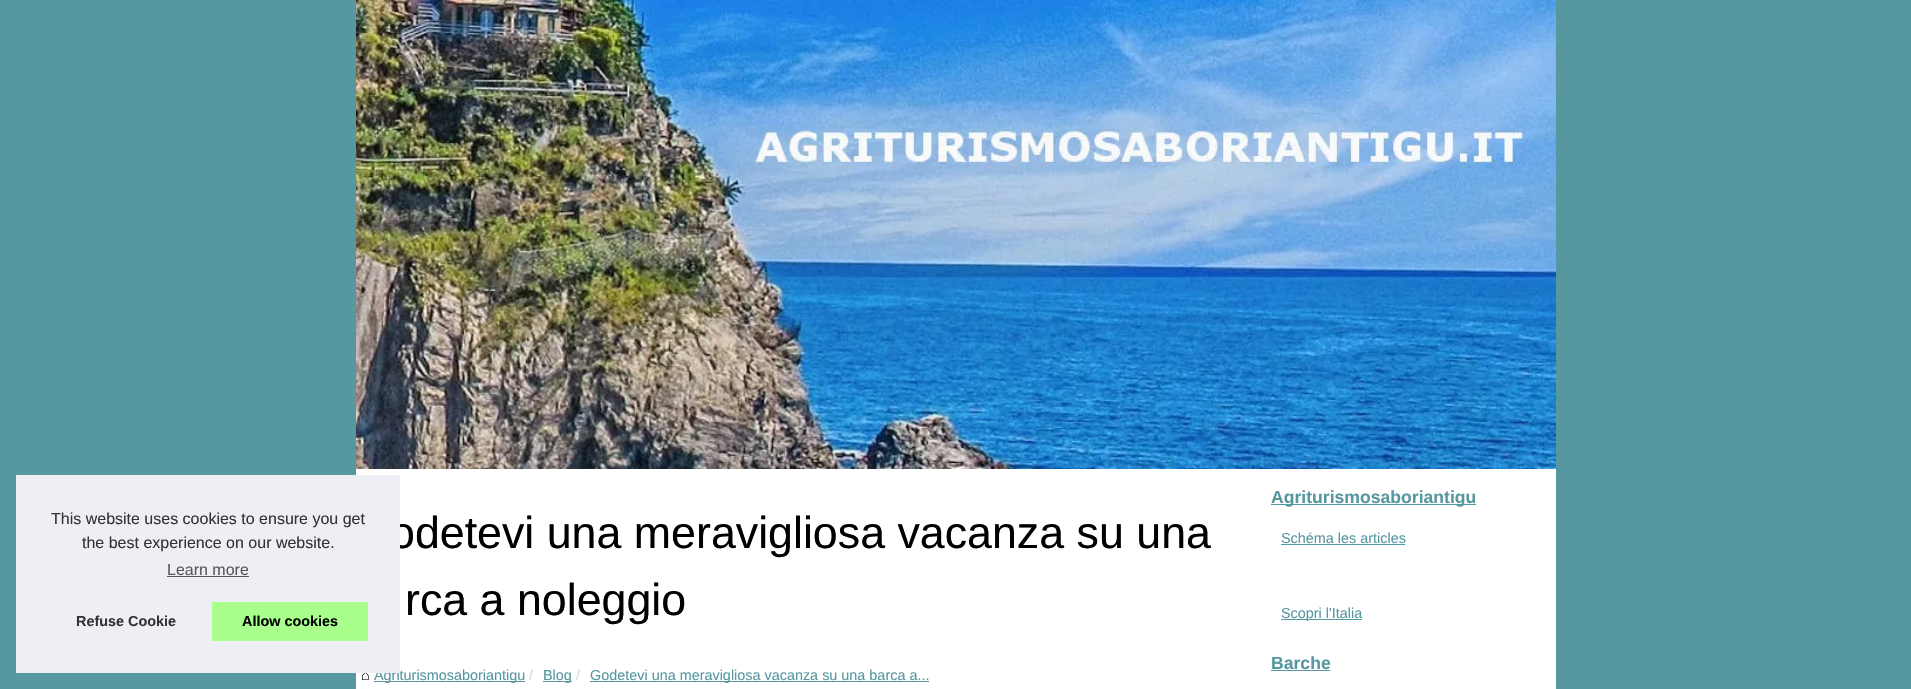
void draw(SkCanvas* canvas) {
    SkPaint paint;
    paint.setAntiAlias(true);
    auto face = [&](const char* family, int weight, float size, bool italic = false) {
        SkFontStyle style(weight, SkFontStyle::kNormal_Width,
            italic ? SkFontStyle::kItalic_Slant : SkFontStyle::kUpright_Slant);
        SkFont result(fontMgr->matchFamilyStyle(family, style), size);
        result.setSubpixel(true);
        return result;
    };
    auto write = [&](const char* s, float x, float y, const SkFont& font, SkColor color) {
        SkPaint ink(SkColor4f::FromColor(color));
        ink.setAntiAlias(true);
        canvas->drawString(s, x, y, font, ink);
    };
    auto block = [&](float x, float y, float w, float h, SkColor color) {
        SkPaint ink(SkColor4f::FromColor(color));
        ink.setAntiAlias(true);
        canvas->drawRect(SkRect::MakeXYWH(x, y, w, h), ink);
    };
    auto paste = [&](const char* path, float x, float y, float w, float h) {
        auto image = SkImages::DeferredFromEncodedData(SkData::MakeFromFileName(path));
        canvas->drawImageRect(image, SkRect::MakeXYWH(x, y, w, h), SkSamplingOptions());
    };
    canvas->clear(SkColorSetRGB(87, 151, 160));
    paste("pic1.png", 356, 0, 1200, 469);
    block(356, 469, 1200, 220, SK_ColorWHITE);
    auto kFont1 = face("Liberation Sans", 400, 44.75f);
    write("odetevi una meravigliosa vacanza su una", 390, 548, kFont1, SK_ColorBLACK);
    auto kFont2 = face("Liberation Sans", 400, 14.4f);
    write("⌂", 361, 680, kFont2, SK_ColorBLACK);
    block(374, 681, 151, 1, SkColorSetRGB(87, 151, 160));
    write("Agriturismosaboriantigu", 374, 680, kFont2, SkColorSetRGB(87, 151, 160));
    block(16, 475, 384, 198, SkColorSetRGB(237, 239, 245));
    auto kFont3 = face("Liberation Sans", 400, 16);
    write("This website uses cookies to ensure you get", 51, 524, kFont3, SkColorSetRGB(51, 51, 51));
    write("the best experience on our website.", 82, 548, kFont3, SkColorSetRGB(51, 51, 51));
    write("Learn more", 167, 575, kFont3, SkColorSetRGB(88, 89, 90));
    block(167, 576, 82, 1, SkColorSetRGB(88, 89, 90));
    auto kFont4 = face("Liberation Sans", 700, 14.4f);
    write("Refuse Cookie", 76, 626, kFont4, SkColorSetRGB(51, 51, 51));
    block(212, 602, 156, 39, SkColorSetRGB(168, 255, 140));
    write("Allow cookies", 242, 626, kFont4, SK_ColorBLACK);
    write("rca a noleggio", 405, 615, kFont1, SK_ColorBLACK);
    write("/", 529, 680, kFont2, SkColorSetRGB(217, 217, 217));
    block(543, 681, 29, 1, SkColorSetRGB(87, 151, 160));
    write("Blog", 543, 680, kFont2, SkColorSetRGB(87, 151, 160));
    write("/", 576, 680, kFont2, SkColorSetRGB(217, 217, 217));
    block(590, 681, 339, 1, SkColorSetRGB(87, 151, 160));
    write("Godetevi una meravigliosa vacanza su una barca a...", 590, 680, kFont2, SkColorSetRGB(87, 151, 160));
    block(1271, 504, 205, 1, SkColorSetRGB(87, 151, 160));
    auto kFont5 = face("Liberation Sans", 700, 17.6f);
    write("Agriturismosaboriantigu", 1271, 503, kFont5, SkColorSetRGB(87, 151, 160));
    write("Schéma les articles", 1281, 543, kFont2, SkColorSetRGB(87, 151, 160));
    block(1281, 544, 124, 1, SkColorSetRGB(87, 151, 160));
    block(1281, 619, 81, 1, SkColorSetRGB(87, 151, 160));
    write("Scopri l'Italia", 1281, 618, kFont2, SkColorSetRGB(87, 151, 160));
    write("Barche", 1271, 669, kFont5, SkColorSetRGB(87, 151, 160));
    block(1271, 670, 59, 1, SkColorSetRGB(87, 151, 160));
}
